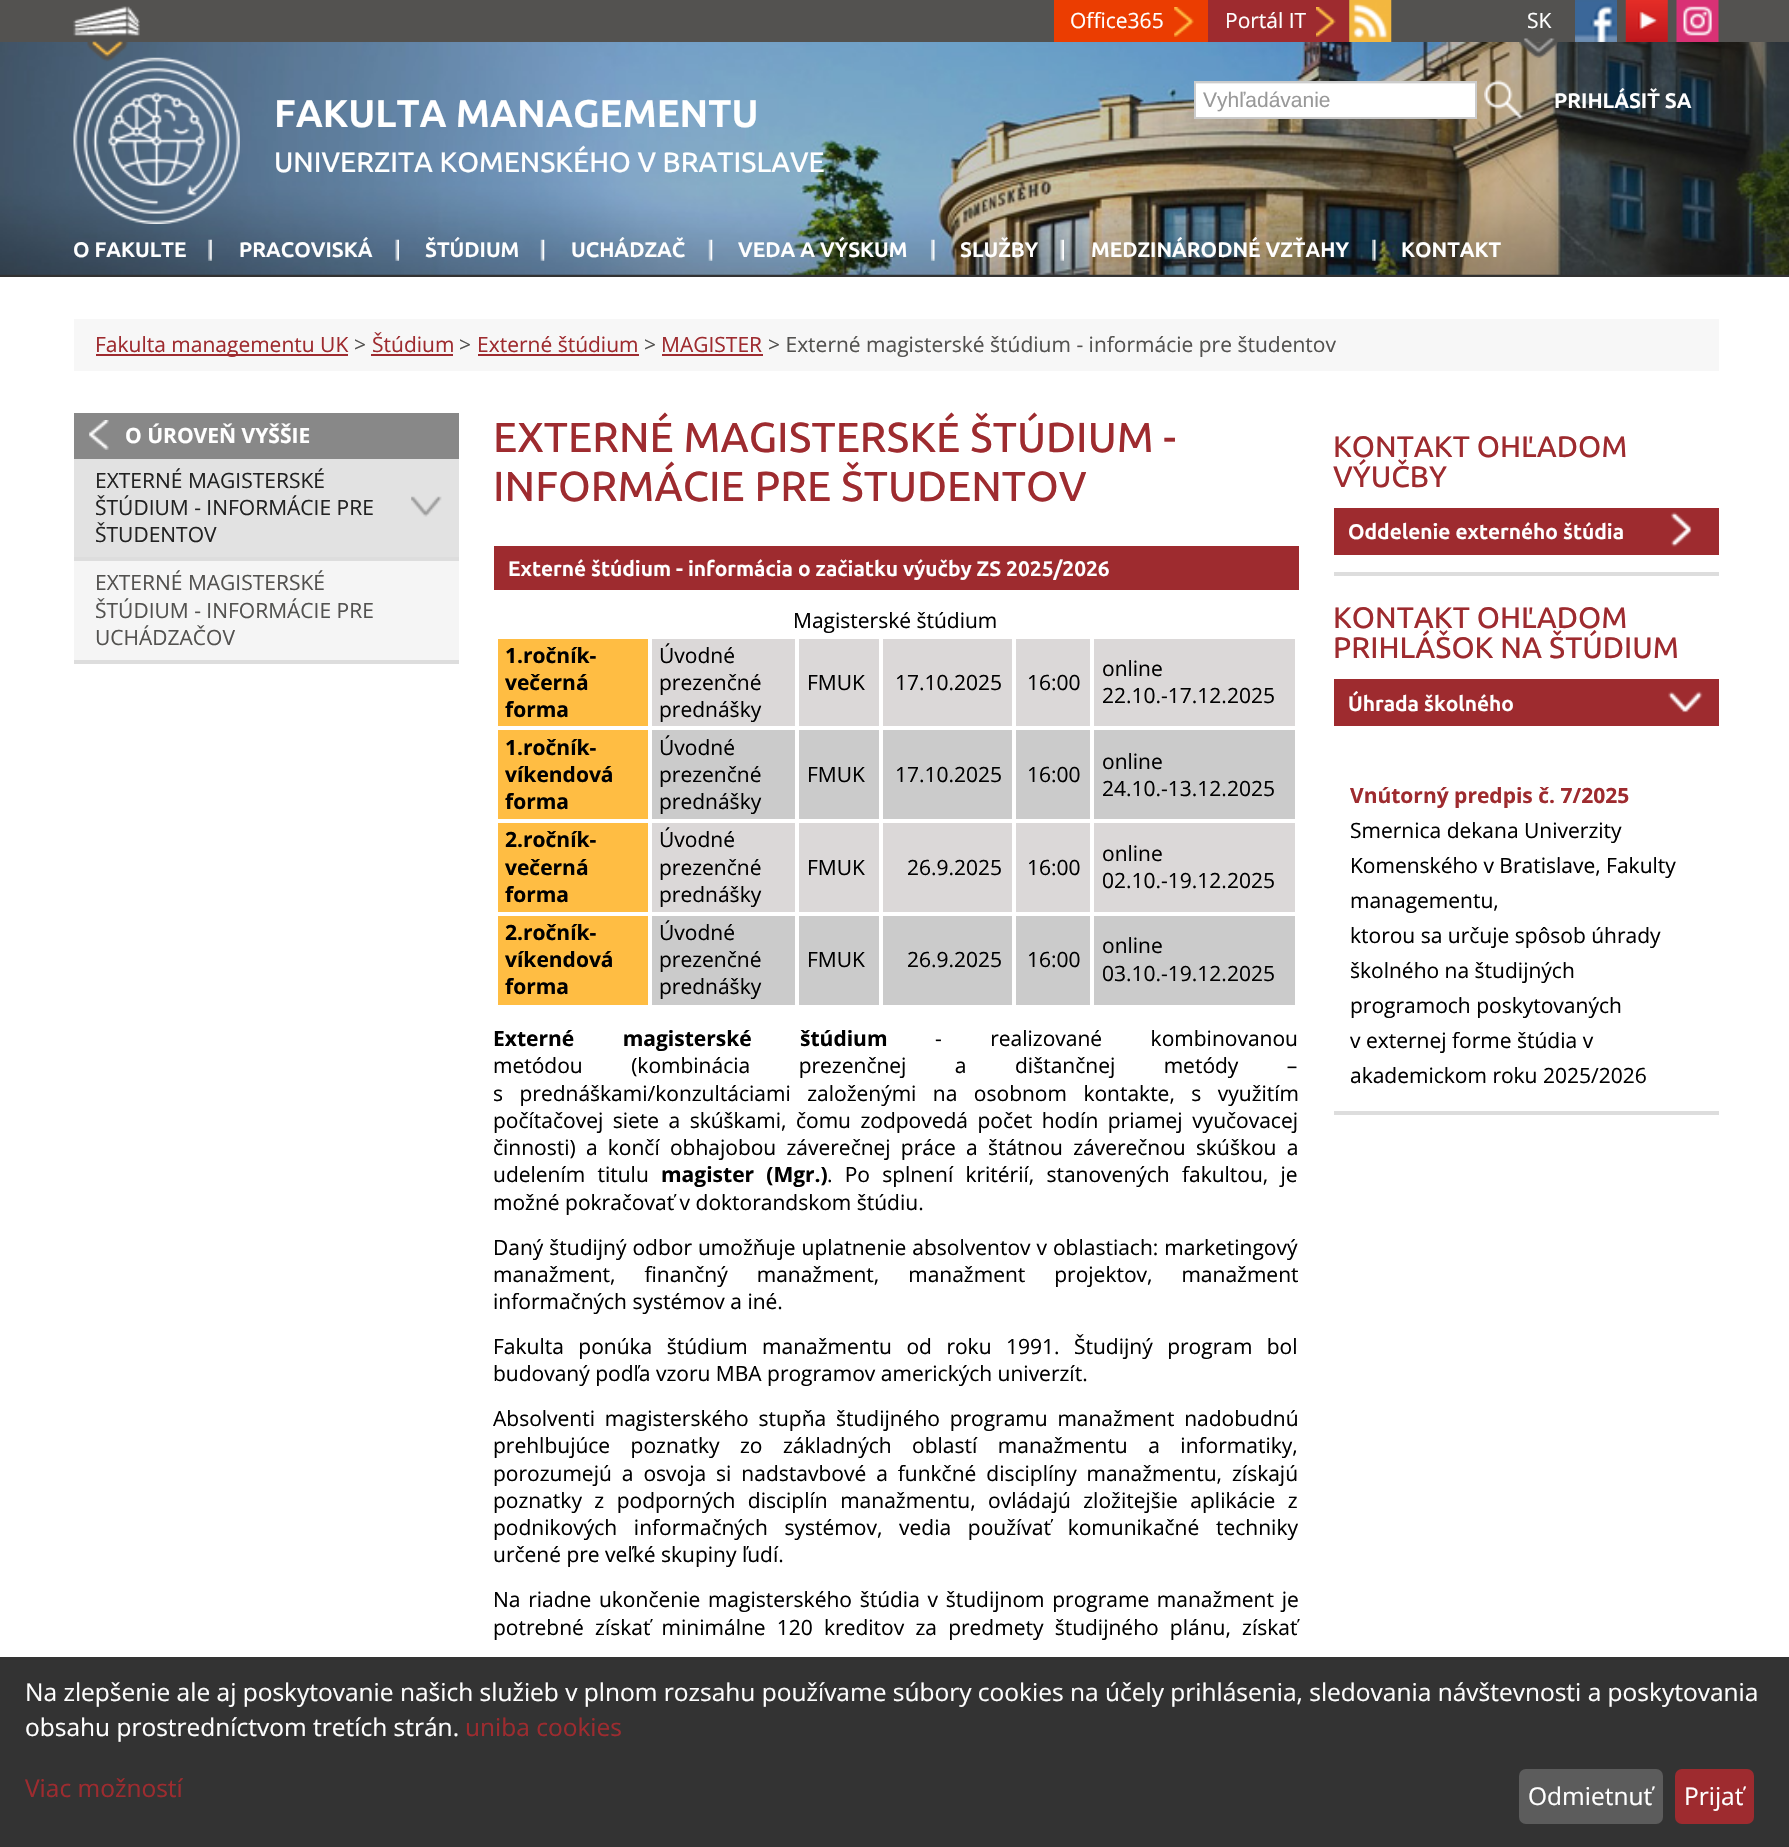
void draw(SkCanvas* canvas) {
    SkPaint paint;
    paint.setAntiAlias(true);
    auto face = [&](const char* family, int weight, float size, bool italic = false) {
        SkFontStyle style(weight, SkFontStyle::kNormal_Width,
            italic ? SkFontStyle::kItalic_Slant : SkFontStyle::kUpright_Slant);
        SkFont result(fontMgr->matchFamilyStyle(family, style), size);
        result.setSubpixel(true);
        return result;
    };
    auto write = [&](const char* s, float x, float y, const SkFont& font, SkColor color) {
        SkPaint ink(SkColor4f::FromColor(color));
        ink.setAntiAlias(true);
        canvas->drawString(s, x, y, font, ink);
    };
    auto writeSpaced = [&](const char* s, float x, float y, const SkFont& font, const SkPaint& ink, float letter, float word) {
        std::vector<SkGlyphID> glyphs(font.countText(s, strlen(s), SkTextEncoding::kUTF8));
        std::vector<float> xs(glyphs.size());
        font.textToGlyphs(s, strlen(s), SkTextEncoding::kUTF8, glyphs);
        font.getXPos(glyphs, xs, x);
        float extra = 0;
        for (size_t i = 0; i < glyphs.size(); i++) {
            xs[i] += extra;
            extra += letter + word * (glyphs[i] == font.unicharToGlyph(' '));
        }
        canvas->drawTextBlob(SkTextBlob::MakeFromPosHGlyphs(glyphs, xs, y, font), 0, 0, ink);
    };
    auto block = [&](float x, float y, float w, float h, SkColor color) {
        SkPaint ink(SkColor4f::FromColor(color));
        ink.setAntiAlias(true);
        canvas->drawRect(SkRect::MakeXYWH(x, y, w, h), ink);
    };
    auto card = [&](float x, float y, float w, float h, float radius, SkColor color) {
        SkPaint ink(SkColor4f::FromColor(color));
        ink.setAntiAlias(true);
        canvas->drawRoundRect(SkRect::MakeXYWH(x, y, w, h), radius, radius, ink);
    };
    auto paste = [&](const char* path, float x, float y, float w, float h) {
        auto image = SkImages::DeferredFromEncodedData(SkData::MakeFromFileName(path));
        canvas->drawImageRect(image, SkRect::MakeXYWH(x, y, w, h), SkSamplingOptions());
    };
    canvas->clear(SK_ColorWHITE);
    block(0, 0, 1789, 42, SkColorSetRGB(83, 82, 80));
    block(0, 274, 1789, 3, SkColorSetRGB(50, 50, 50));
    paste("pic9.png", 0, 42, 1789, 233);
    paste("pic17.png", 73, 57, 167, 167);
    paste("pic1.png", 73, 6, 67, 56);
    block(1054, 0, 154, 42, SkColorSetRGB(235, 61, 1));
    paste("pic2.png", 1174, 7, 20, 30);
    auto kFont1 = face("Open Sans", 400, 21);
    write("Office365", 1070, 28, kFont1, SK_ColorWHITE);
    block(1208, 0, 141, 42, SkColorSetRGB(158, 43, 47));
    paste("pic3.png", 1316, 7, 20, 30);
    write("Portál IT", 1225, 28, kFont1, SK_ColorWHITE);
    paste("pic4.png", 1349, 0, 43, 42);
    paste("pic5.png", 1519, 38, 39, 20);
    write("SK", 1527, 28, kFont1, SK_ColorWHITE);
    paste("pic6.png", 1575, 0, 42, 42);
    paste("pic7.png", 1625, 0, 43, 42);
    paste("pic8.png", 1676, 0, 43, 42);
    auto kFont2 = face("Ubuntu", 700, 21);
    write("PRIHLÁSIŤ SA", 1554, 108, kFont2, SK_ColorWHITE);
    write("O FAKULTE", 73, 257, kFont2, SK_ColorWHITE);
    paste("pic10.png", 208, 239, 4, 22);
    write("PRACOVISKÁ", 239, 257, kFont2, SK_ColorWHITE);
    paste("pic11.png", 395, 239, 4, 22);
    write("ŠTÚDIUM", 425, 257, kFont2, SK_ColorWHITE);
    paste("pic12.png", 540, 239, 5, 22);
    write("UCHÁDZAČ", 571, 257, kFont2, SK_ColorWHITE);
    paste("pic13.png", 708, 239, 5, 22);
    write("VEDA A VÝSKUM", 738, 257, kFont2, SK_ColorWHITE);
    paste("pic14.png", 931, 239, 4, 22);
    write("SLUŽBY", 960, 257, kFont2, SK_ColorWHITE);
    paste("pic15.png", 1060, 239, 4, 22);
    write("MEDZINÁRODNÉ VZŤAHY", 1091, 257, kFont2, SK_ColorWHITE);
    paste("pic16.png", 1372, 239, 4, 22);
    write("KONTAKT", 1401, 257, kFont2, SK_ColorWHITE);
    auto kFont3 = face("Ubuntu", 700, 38.5f);
    write("FAKULTA MANAGEMENTU", 274, 127, kFont3, SK_ColorWHITE);
    auto kFont4 = face("Ubuntu", 500, 28);
    write("UNIVERZITA KOMENSKÉHO V BRATISLAVE", 274, 172, kFont4, SK_ColorWHITE);
    block(1196, 84, 279, 33, SK_ColorWHITE);
    block(1195, 83, 280, 1, SkColorSetRGB(236, 236, 236));
    paint.setStyle(SkPaint::kStroke_Style);
    paint.setStrokeWidth(2);
    paint.setColor(SkColorSetRGB(204, 204, 204));
    canvas->drawRect(SkRect::MakeXYWH(1195, 82, 281, 36), paint);
    auto kFont5 = face("Liberation Sans", 400, 21);
    write("Vyhľadávanie", 1203, 107, kFont5, SkColorSetRGB(153, 153, 153));
    paste("pic18.png", 1484, 80, 39, 39);
    block(74, 319, 1645, 52, SkColorSetRGB(247, 247, 247));
    block(96, 354, 252, 2, SkColorSetRGB(158, 43, 47));
    write("Fakulta managementu UK", 95, 352, kFont1, SkColorSetRGB(158, 43, 47));
    write(">", 354, 352, kFont1, SkColorSetRGB(83, 82, 80));
    write("Štúdium", 372, 352, kFont1, SkColorSetRGB(158, 43, 47));
    block(371, 354, 82, 2, SkColorSetRGB(158, 43, 47));
    write(">", 459, 352, kFont1, SkColorSetRGB(83, 82, 80));
    write("Externé štúdium", 477, 352, kFont1, SkColorSetRGB(158, 43, 47));
    block(478, 354, 161, 2, SkColorSetRGB(158, 43, 47));
    write(">", 644, 352, kFont1, SkColorSetRGB(83, 82, 80));
    write("MAGISTER", 661, 352, kFont1, SkColorSetRGB(158, 43, 47));
    block(662, 354, 101, 2, SkColorSetRGB(158, 43, 47));
    write("> Externé magisterské štúdium - informácie pre študentov", 768, 352, kFont1, SkColorSetRGB(83, 82, 80));
    block(74, 561, 385, 99, SkColorSetRGB(245, 245, 245));
    block(74, 413, 385, 46, SkColorSetRGB(136, 136, 136));
    paste("pic19.png", 89, 420, 20, 30);
    auto kFont6 = face("Open Sans", 700, 21);
    write("O ÚROVEŇ VYŠŠIE", 125, 443, kFont6, SK_ColorWHITE);
    block(74, 557, 385, 4, SkColorSetRGB(221, 221, 221));
    block(74, 459, 385, 98, SkColorSetRGB(226, 226, 226));
    paste("pic20.png", 411, 496, 31, 21);
    write("EXTERNÉ MAGISTERSKÉ", 95, 488, kFont1, SkColorSetRGB(34, 34, 34));
    write("ŠTÚDIUM - INFORMÁCIE PRE", 95, 515, kFont1, SkColorSetRGB(34, 34, 34));
    write("ŠTUDENTOV", 95, 542, kFont1, SkColorSetRGB(34, 34, 34));
    block(74, 660, 385, 4, SkColorSetRGB(221, 221, 221));
    write("EXTERNÉ MAGISTERSKÉ", 95, 590, kFont1, SkColorSetRGB(83, 82, 80));
    write("ŠTÚDIUM - INFORMÁCIE PRE", 95, 618, kFont1, SkColorSetRGB(83, 82, 80));
    write("UCHÁDZAČOV", 95, 645, kFont1, SkColorSetRGB(83, 82, 80));
    auto kFont7 = face("Ubuntu", 500, 42);
    write("EXTERNÉ MAGISTERSKÉ ŠTÚDIUM -", 493, 452, kFont7, SkColorSetRGB(158, 43, 47));
    write("INFORMÁCIE PRE ŠTUDENTOV", 493, 501, kFont7, SkColorSetRGB(158, 43, 47));
    block(494, 546, 805, 44, SkColorSetRGB(158, 43, 47));
    write("Externé štúdium - informácia o začiatku výučby ZS 2025/2026", 508, 576, kFont2, SK_ColorWHITE);
    write("Magisterské štúdium", 793, 628, kFont1, SK_ColorBLACK);
    block(498, 639, 150, 87, SkColorSetRGB(255, 189, 67));
    write("1.ročník-", 505, 663, kFont6, SK_ColorBLACK);
    write("večerná", 505, 690, kFont6, SK_ColorBLACK);
    write("forma", 505, 717, kFont6, SK_ColorBLACK);
    block(652, 639, 143, 87, SkColorSetRGB(219, 216, 216));
    write("Úvodné", 659, 663, kFont1, SK_ColorBLACK);
    write("prezenčné", 659, 690, kFont1, SK_ColorBLACK);
    write("prednášky", 659, 717, kFont1, SK_ColorBLACK);
    block(799, 639, 80, 87, SkColorSetRGB(219, 216, 216));
    write("FMUK", 807, 690, kFont1, SK_ColorBLACK);
    block(883, 639, 129, 87, SkColorSetRGB(219, 216, 216));
    write("17.10.2025", 895, 690, kFont1, SK_ColorBLACK);
    block(1016, 639, 74, 87, SkColorSetRGB(219, 216, 216));
    write("16:00", 1027, 690, kFont1, SK_ColorBLACK);
    block(1094, 639, 201, 87, SkColorSetRGB(219, 216, 216));
    write("online", 1102, 676, kFont1, SK_ColorBLACK);
    write("22.10.-17.12.2025", 1102, 703, kFont1, SK_ColorBLACK);
    block(498, 730, 150, 89, SkColorSetRGB(255, 189, 67));
    write("1.ročník-", 505, 755, kFont6, SK_ColorBLACK);
    write("víkendová", 505, 782, kFont6, SK_ColorBLACK);
    write("forma", 505, 809, kFont6, SK_ColorBLACK);
    block(652, 730, 143, 89, SkColorSetRGB(203, 203, 203));
    write("Úvodné", 659, 755, kFont1, SK_ColorBLACK);
    write("prezenčné", 659, 782, kFont1, SK_ColorBLACK);
    write("prednášky", 659, 809, kFont1, SK_ColorBLACK);
    block(799, 730, 80, 89, SkColorSetRGB(203, 203, 203));
    write("FMUK", 807, 782, kFont1, SK_ColorBLACK);
    block(883, 730, 129, 89, SkColorSetRGB(203, 203, 203));
    write("17.10.2025", 895, 782, kFont1, SK_ColorBLACK);
    block(1016, 730, 74, 89, SkColorSetRGB(203, 203, 203));
    write("16:00", 1027, 782, kFont1, SK_ColorBLACK);
    block(1094, 730, 201, 89, SkColorSetRGB(203, 203, 203));
    write("online", 1102, 769, kFont1, SK_ColorBLACK);
    write("24.10.-13.12.2025", 1102, 796, kFont1, SK_ColorBLACK);
    block(498, 823, 150, 89, SkColorSetRGB(255, 189, 67));
    write("2.ročník-", 505, 847, kFont6, SK_ColorBLACK);
    write("večerná", 505, 875, kFont6, SK_ColorBLACK);
    write("forma", 505, 902, kFont6, SK_ColorBLACK);
    block(652, 823, 143, 89, SkColorSetRGB(219, 216, 216));
    write("Úvodné", 659, 847, kFont1, SK_ColorBLACK);
    write("prezenčné", 659, 875, kFont1, SK_ColorBLACK);
    write("prednášky", 659, 902, kFont1, SK_ColorBLACK);
    block(799, 823, 80, 89, SkColorSetRGB(219, 216, 216));
    write("FMUK", 807, 875, kFont1, SK_ColorBLACK);
    block(883, 823, 129, 89, SkColorSetRGB(219, 216, 216));
    write("26.9.2025", 907, 875, kFont1, SK_ColorBLACK);
    block(1016, 823, 74, 89, SkColorSetRGB(219, 216, 216));
    write("16:00", 1027, 875, kFont1, SK_ColorBLACK);
    block(1094, 823, 201, 89, SkColorSetRGB(219, 216, 216));
    write("online", 1102, 861, kFont1, SK_ColorBLACK);
    write("02.10.-19.12.2025", 1102, 888, kFont1, SK_ColorBLACK);
    block(498, 916, 150, 89, SkColorSetRGB(255, 189, 67));
    write("2.ročník-", 505, 940, kFont6, SK_ColorBLACK);
    write("víkendová", 505, 967, kFont6, SK_ColorBLACK);
    write("forma", 505, 994, kFont6, SK_ColorBLACK);
    block(652, 916, 143, 89, SkColorSetRGB(203, 203, 203));
    write("Úvodné", 659, 940, kFont1, SK_ColorBLACK);
    write("prezenčné", 659, 967, kFont1, SK_ColorBLACK);
    write("prednášky", 659, 994, kFont1, SK_ColorBLACK);
    block(799, 916, 80, 89, SkColorSetRGB(203, 203, 203));
    write("FMUK", 807, 967, kFont1, SK_ColorBLACK);
    block(883, 916, 129, 89, SkColorSetRGB(203, 203, 203));
    write("26.9.2025", 907, 967, kFont1, SK_ColorBLACK);
    block(1016, 916, 74, 89, SkColorSetRGB(203, 203, 203));
    write("16:00", 1027, 967, kFont1, SK_ColorBLACK);
    block(1094, 916, 201, 89, SkColorSetRGB(203, 203, 203));
    write("online", 1102, 953, kFont1, SK_ColorBLACK);
    write("03.10.-19.12.2025", 1102, 981, kFont1, SK_ColorBLACK);
    paint.setStyle(SkPaint::kFill_Style);
    paint.setColor(SK_ColorBLACK);
    writeSpaced("Externé magisterské štúdium", 493, 1046, kFont6, paint, 0, 43);
    writeSpaced("- realizované kombinovanou", 935, 1046, kFont1, paint, 0, 43);
    writeSpaced("metódou (kombinácia prezenčnej a dištančnej metódy –", 493, 1073, kFont1, paint, 0, 43);
    writeSpaced("s prednáškami/konzultáciami založenými na osobnom kontakte, s využitím", 493, 1101, kFont1, paint, 0, 11);
    writeSpaced("počítačovej siete a skúškami, čomu zodpovedá počet hodín priamej vyučovacej", 493, 1128, kFont1, paint, 0, 4);
    writeSpaced("činnosti) a končí obhajobou záverečnej práce a štátnou záverečnou skúškou a", 493, 1155, kFont1, paint, 0, 4.75f);
    writeSpaced("udelením titulu", 493, 1182, kFont1, paint, 0, 6.75f);
    writeSpaced("magister (Mgr.)", 661, 1182, kFont6, paint, 0, 6.75f);
    writeSpaced(". Po splnení kritérií, stanovených fakultou, je", 827, 1182, kFont1, paint, 0, 6.75f);
    write("možné pokračovať v doktorandskom štúdiu.", 493, 1210, kFont1, SK_ColorBLACK);
    writeSpaced("Daný študijný odbor umožňuje uplatnenie absolventov v oblastiach: marketingový", 493, 1255, kFont1, paint, 0, 0.5f);
    writeSpaced("manažment, finančný manažment, manažment projektov, manažment", 493, 1282, kFont1, paint, 0, 23.5f);
    write("informačných systémov a iné.", 493, 1309, kFont1, SK_ColorBLACK);
    writeSpaced("Fakulta ponúka štúdium manažmentu od roku 1991. Študijný program bol", 493, 1354, kFont1, paint, 0, 9);
    write("budovaný podľa vzoru MBA programov amerických univerzít.", 493, 1381, kFont1, SK_ColorBLACK);
    writeSpaced("Absolventi magisterského stupňa študijného programu manažment nadobudnú", 493, 1426, kFont1, paint, 0, 4.25f);
    writeSpaced("prehlbujúce poznatky zo základných oblastí manažmentu a informatiky,", 493, 1453, kFont1, paint, 0, 15);
    writeSpaced("porozumejú a osvoja si nadstavbové a funkčné disciplíny manažmentu, získajú", 493, 1481, kFont1, paint, 0, 4.5f);
    writeSpaced("poznatky z podporných disciplín manažmentu, ovládajú zložitejšie aplikácie z", 493, 1508, kFont1, paint, 0, 7);
    writeSpaced("podnikových informačných systémov, vedia používať komunikačné techniky", 493, 1535, kFont1, paint, 0, 11.25f);
    write("určené pre veľké skupiny ľudí.", 493, 1562, kFont1, SK_ColorBLACK);
    writeSpaced("Na riadne ukončenie magisterského štúdia v študijnom programe manažment je", 493, 1607, kFont1, paint, 0, 2.25f);
    writeSpaced("potrebné získať minimálne 120 kreditov za predmety študijného plánu, získať", 493, 1635, kFont1, paint, 0, 5.75f);
    auto kFont8 = face("Ubuntu", 500, 29.75f);
    write("KONTAKT OHĽADOM", 1333, 457, kFont8, SkColorSetRGB(158, 43, 47));
    write("VÝUČBY", 1333, 487, kFont8, SkColorSetRGB(158, 43, 47));
    block(1334, 572, 385, 4, SkColorSetRGB(221, 221, 221));
    block(1334, 508, 385, 47, SkColorSetRGB(158, 43, 47));
    write("Oddelenie externého štúdia", 1348, 539, kFont2, SK_ColorWHITE);
    paste("pic21.png", 1670, 512, 22, 35);
    write("KONTAKT OHĽADOM", 1333, 628, kFont8, SkColorSetRGB(158, 43, 47));
    write("PRIHLÁŠOK NA ŠTÚDIUM", 1333, 658, kFont8, SkColorSetRGB(158, 43, 47));
    block(1334, 1111, 385, 4, SkColorSetRGB(221, 221, 221));
    block(1334, 679, 385, 47, SkColorSetRGB(158, 43, 47));
    write("Úhrada školného", 1348, 711, kFont2, SK_ColorWHITE);
    paste("pic22.png", 1668, 691, 35, 22);
    write("Vnútorný predpis č. 7/2025", 1350, 803, kFont6, SkColorSetRGB(158, 43, 47));
    write("Smernica dekana Univerzity", 1350, 838, kFont1, SK_ColorBLACK);
    write("Komenského v Bratislave, Fakulty", 1350, 873, kFont1, SK_ColorBLACK);
    write("managementu,", 1350, 908, kFont1, SK_ColorBLACK);
    write("ktorou sa určuje spôsob úhrady", 1350, 943, kFont1, SK_ColorBLACK);
    write("školného na študijných", 1350, 978, kFont1, SK_ColorBLACK);
    write("programoch poskytovaných", 1350, 1013, kFont1, SK_ColorBLACK);
    write("v externej forme štúdia v", 1350, 1048, kFont1, SK_ColorBLACK);
    write("akademickom roku 2025/2026", 1350, 1083, kFont1, SK_ColorBLACK);
    block(0, 1657, 1789, 190, SkColorSetRGB(51, 51, 51));
    auto kFont9 = face("Open Sans", 400, 24.5f);
    write("Na zlepšenie ale aj poskytovanie našich služieb v plnom rozsahu používame súbory cookies na účely prihlásenia, sledovania návštevnosti a poskytovania", 25, 1701, kFont9, SK_ColorWHITE);
    write("obsahu prostredníctvom tretích strán.", 25, 1736, kFont9, SK_ColorWHITE);
    write("uniba cookies", 465, 1736, kFont9, SkColorSetRGB(158, 43, 47));
    write("Viac možností", 25, 1797, kFont9, SkColorSetRGB(158, 43, 47));
    card(1519, 1769, 144, 55, 7, SkColorSetRGB(92, 92, 92));
    write("Odmietnuť", 1528, 1805, kFont9, SK_ColorWHITE);
    card(1675, 1769, 79, 55, 7, SkColorSetRGB(158, 43, 47));
    write("Prijať", 1684, 1805, kFont9, SK_ColorWHITE);
}
